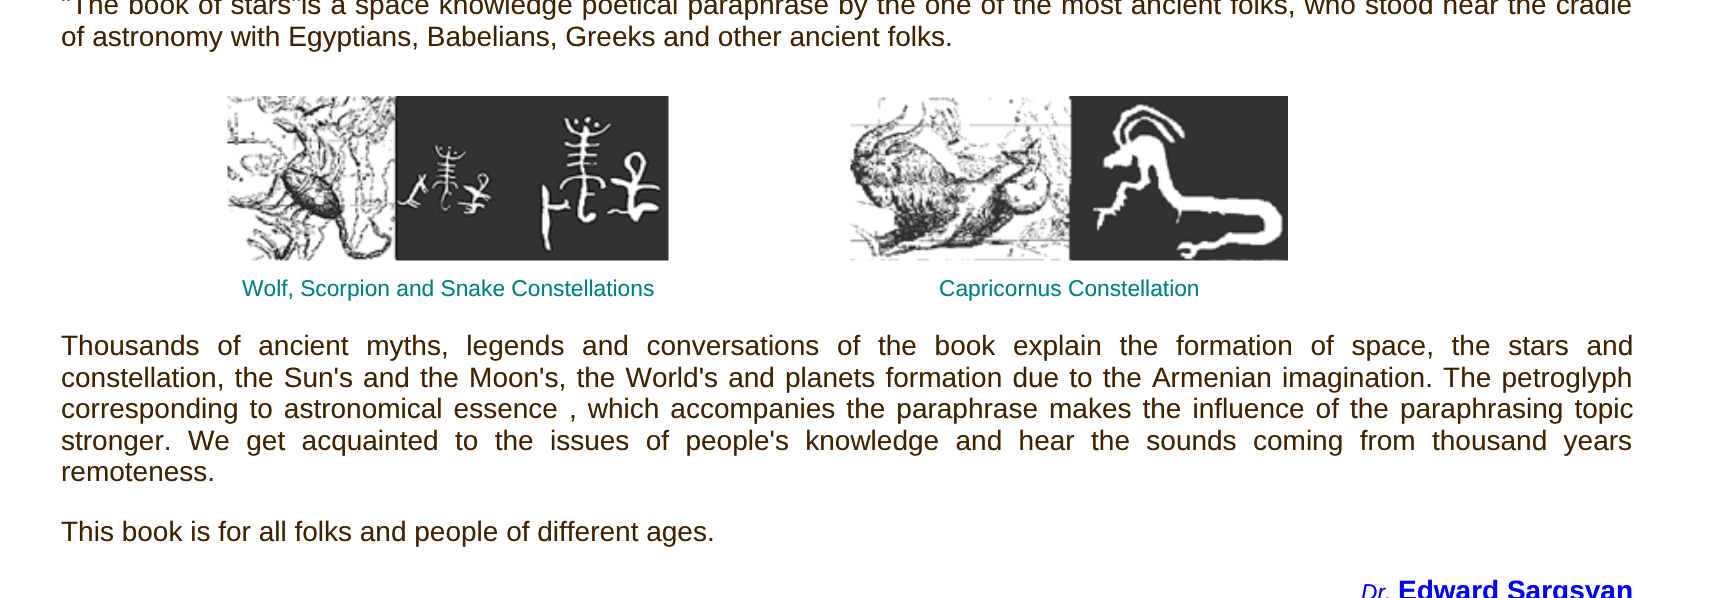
void draw(SkCanvas* canvas) {
    SkPaint paint;
    paint.setAntiAlias(true);
    auto face = [&](const char* family, int weight, float size, bool italic = false) {
        SkFontStyle style(weight, SkFontStyle::kNormal_Width,
            italic ? SkFontStyle::kItalic_Slant : SkFontStyle::kUpright_Slant);
        SkFont result(fontMgr->matchFamilyStyle(family, style), size);
        result.setSubpixel(true);
        return result;
    };
    auto write = [&](const char* s, float x, float y, const SkFont& font, SkColor color) {
        SkPaint ink(SkColor4f::FromColor(color));
        ink.setAntiAlias(true);
        canvas->drawString(s, x, y, font, ink);
    };
    auto writeSpaced = [&](const char* s, float x, float y, const SkFont& font, const SkPaint& ink, float letter, float word) {
        std::vector<SkGlyphID> glyphs(font.countText(s, strlen(s), SkTextEncoding::kUTF8));
        std::vector<float> xs(glyphs.size());
        font.textToGlyphs(s, strlen(s), SkTextEncoding::kUTF8, glyphs);
        font.getXPos(glyphs, xs, x);
        float extra = 0;
        for (size_t i = 0; i < glyphs.size(); i++) {
            xs[i] += extra;
            extra += letter + word * (glyphs[i] == font.unicharToGlyph(' '));
        }
        canvas->drawTextBlob(SkTextBlob::MakeFromPosHGlyphs(glyphs, xs, y, font), 0, 0, ink);
    };
    auto paste = [&](const char* path, float x, float y, float w, float h) {
        auto image = SkImages::DeferredFromEncodedData(SkData::MakeFromFileName(path));
        canvas->drawImageRect(image, SkRect::MakeXYWH(x, y, w, h), SkSamplingOptions());
    };
    canvas->clear(SK_ColorWHITE);
    auto kFont1 = face("Liberation Sans", 400, 28);
    paint.setColor(SkColorSetRGB(63, 34, 0));
    writeSpaced("\"The book of stars\"is a space knowledge poetical paraphrase by the one of the most ancient folks, who stood near the cradle", 61, 14, kFont1, paint, 0, 1.3f);
    write("of astronomy with Egyptians, Babelians, Greeks and other ancient folks.", 61, 46, kFont1, SkColorSetRGB(63, 34, 0));
    paste("pic1.png", 227, 96, 442, 165);
    auto kFont2 = face("Liberation Sans", 400, 22.75f);
    write("Wolf, Scorpion and Snake Constellations", 242, 296, kFont2, SkColorSetRGB(0, 128, 128));
    paste("pic2.png", 850, 96, 438, 165);
    write("Capricornus Constellation", 939, 296, kFont2, SkColorSetRGB(0, 128, 128));
    writeSpaced("Thousands of ancient myths, legends and conversations of the book explain the formation of space, the stars and", 61, 355, kFont1, paint, 0, 9.9f);
    writeSpaced("constellation, the Sun's and the Moon's, the World's and planets formation due to the Armenian imagination. The petroglyph", 61, 387, kFont1, paint, 0, 2.4f);
    writeSpaced("corresponding to astronomical essence , which accompanies the paraphrase makes the influence of the paraphrasing topic", 61, 418, kFont1, paint, 0, 3.25f);
    writeSpaced("stronger. We get acquainted to the issues of people's knowledge and hear the sounds coming from thousand years", 61, 450, kFont1, paint, 0, 8.6f);
    write("remoteness.", 61, 481, kFont1, SkColorSetRGB(63, 34, 0));
    write("This book is for all folks and people of different ages.", 61, 541, kFont1, SkColorSetRGB(63, 34, 0));
    auto kFont3 = face("Liberation Sans", 400, 22.75f, true);
    write("Dr.", 1361, 600, kFont3, SkColorSetRGB(0, 0, 255));
    auto kFont4 = face("Liberation Sans", 700, 28);
    write("Edward Sargsyan", 1398, 600, kFont4, SkColorSetRGB(0, 0, 255));
}
